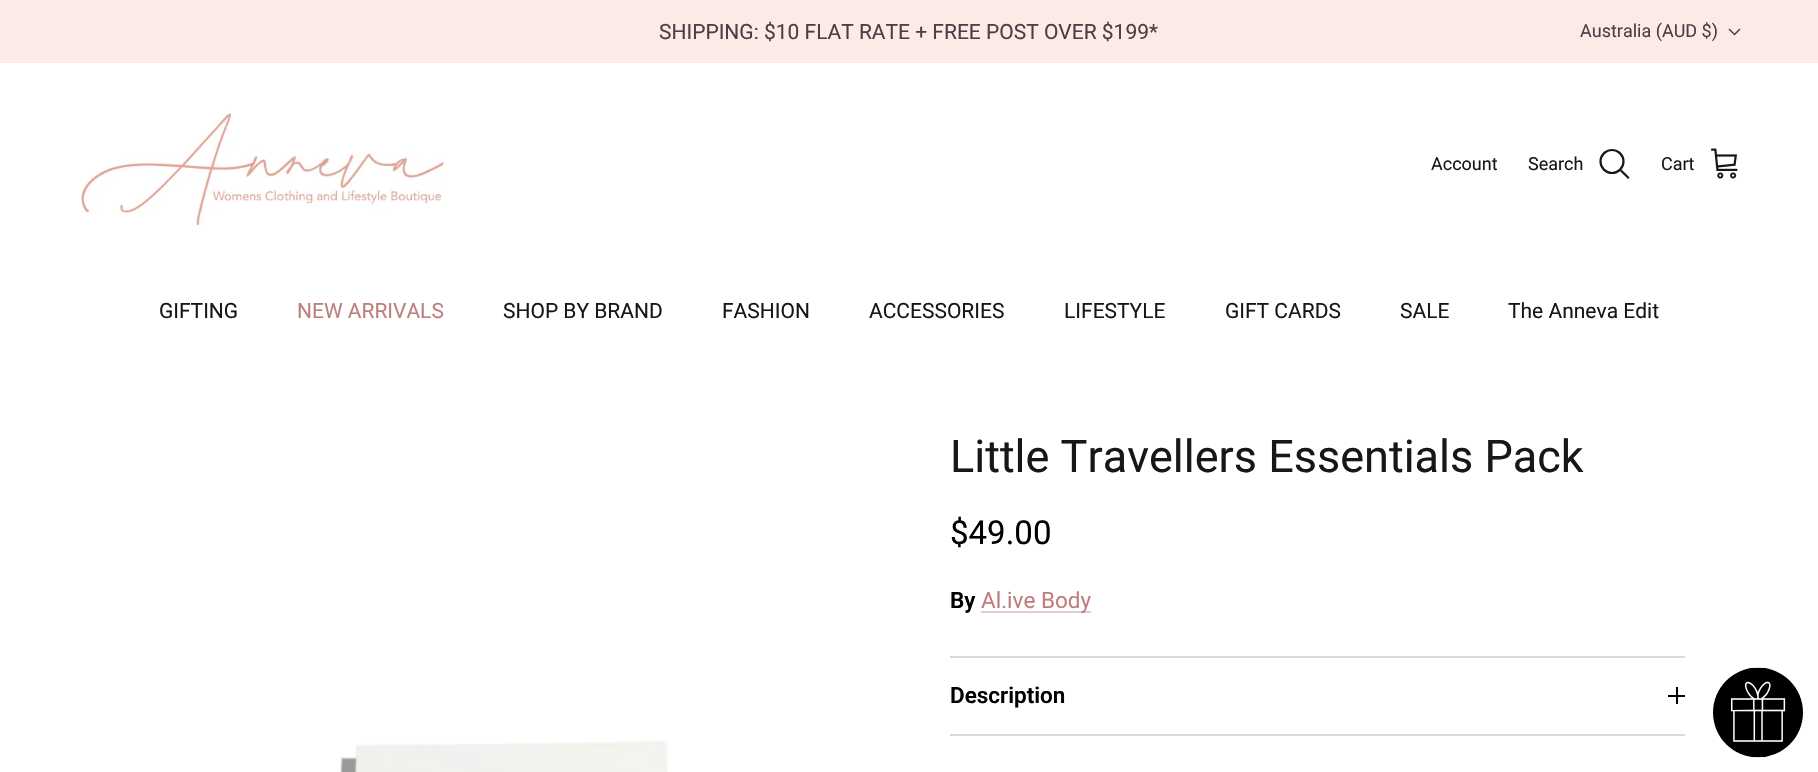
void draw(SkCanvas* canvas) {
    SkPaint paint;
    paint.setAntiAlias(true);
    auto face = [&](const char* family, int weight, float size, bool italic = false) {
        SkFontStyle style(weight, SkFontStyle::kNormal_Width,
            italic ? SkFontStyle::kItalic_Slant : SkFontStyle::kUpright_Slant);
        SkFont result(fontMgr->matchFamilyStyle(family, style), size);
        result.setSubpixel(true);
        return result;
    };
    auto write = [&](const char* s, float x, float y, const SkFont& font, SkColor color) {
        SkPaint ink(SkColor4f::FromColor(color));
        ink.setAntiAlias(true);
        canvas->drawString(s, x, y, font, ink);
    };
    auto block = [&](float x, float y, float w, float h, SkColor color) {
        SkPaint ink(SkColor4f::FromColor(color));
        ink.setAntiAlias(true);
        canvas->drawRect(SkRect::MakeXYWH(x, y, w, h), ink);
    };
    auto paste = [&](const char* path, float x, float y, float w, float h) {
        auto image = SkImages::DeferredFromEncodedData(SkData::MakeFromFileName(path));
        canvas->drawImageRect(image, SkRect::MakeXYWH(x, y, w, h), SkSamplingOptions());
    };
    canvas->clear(SK_ColorWHITE);
    block(0, 0, 1818, 63, SkColorSetRGB(250, 235, 231));
    auto kFont1 = face("Roboto", 400, 21);
    write("SHIPPING: $10 FLAT RATE + FREE POST OVER $199*", 659, 39, kFont1, SkColorSetRGB(76, 62, 70));
    auto kFont2 = face("Roboto", 400, 18);
    write("Australia (AUD $)", 1580, 37, kFont2, SkColorSetRGB(76, 62, 70));
    paint.setStyle(SkPaint::kStroke_Style);
    paint.setStrokeWidth(1.5f);
    paint.setColor(SkColorSetRGB(76, 62, 70));
    canvas->drawPath(SkPathBuilder().moveTo(1740, 29).lineTo(1734.5f, 34.5f).lineTo(1729, 29).detach(), paint);
    paste("pic1.png", 81, 111, 364, 115);
    write("Account", 1431, 170, kFont2, SkColorSetRGB(23, 23, 23));
    write("Search", 1528, 170, kFont2, SkColorSetRGB(23, 23, 23));
    paint.setStrokeWidth(2.2f);
    paint.setColor(SkColorSetRGB(23, 23, 23));
    canvas->drawCircle(1612, 161.5f, 11.5f, paint);
    paint.setStrokeCap(SkPaint::kSquare_Cap);
    canvas->drawPath(SkPathBuilder().moveTo(1621.5f, 171).lineTo(1628, 177.5f).detach(), paint);
    write("Cart", 1661, 170, kFont2, SkColorSetRGB(23, 23, 23));
    paste("pic2.png", 1711, 148, 27, 31);
    write("GIFTING", 159, 318, kFont1, SkColorSetRGB(23, 23, 23));
    write("NEW ARRIVALS", 297, 318, kFont1, SkColorSetRGB(190, 126, 124));
    write("SHOP BY BRAND", 503, 318, kFont1, SkColorSetRGB(23, 23, 23));
    write("FASHION", 722, 318, kFont1, SkColorSetRGB(23, 23, 23));
    write("ACCESSORIES", 869, 318, kFont1, SkColorSetRGB(23, 23, 23));
    write("LIFESTYLE", 1064, 318, kFont1, SkColorSetRGB(23, 23, 23));
    write("GIFT CARDS", 1225, 318, kFont1, SkColorSetRGB(23, 23, 23));
    write("SALE", 1400, 318, kFont1, SkColorSetRGB(23, 23, 23));
    write("The Anneva Edit", 1508, 318, kFont1, SkColorSetRGB(23, 23, 23));
    auto kFont3 = face("Roboto", 400, 45);
    write("Little Travellers Essentials Pack", 950, 472, kFont3, SkColorSetRGB(23, 23, 23));
    auto kFont4 = face("Roboto", 400, 33);
    write("$49.00", 950, 544, kFont4, SK_ColorBLACK);
    auto kFont5 = face("Roboto", 600, 22.5f);
    write("By", 950, 608, kFont5, SK_ColorBLACK);
    block(981, 611, 110, 2, SkColorSetRGB(229, 203, 203));
    auto kFont6 = face("Roboto", 400, 22.5f);
    write("Al.ive Body", 981, 608, kFont6, SkColorSetRGB(190, 126, 124));
    block(950, 656, 735, 2, SkColorSetRGB(217, 217, 217));
    block(950, 734, 735, 2, SkColorSetRGB(217, 217, 217));
    write("Description", 950, 703, kFont5, SK_ColorBLACK);
    block(1676, 687, 2, 17, SK_ColorBLACK);
    block(1668, 695, 17, 2, SK_ColorBLACK);
    paste("pic3.png", 340, 740, 329, 32);
    paste("pic4.png", 1713, 667, 90, 91);
}
